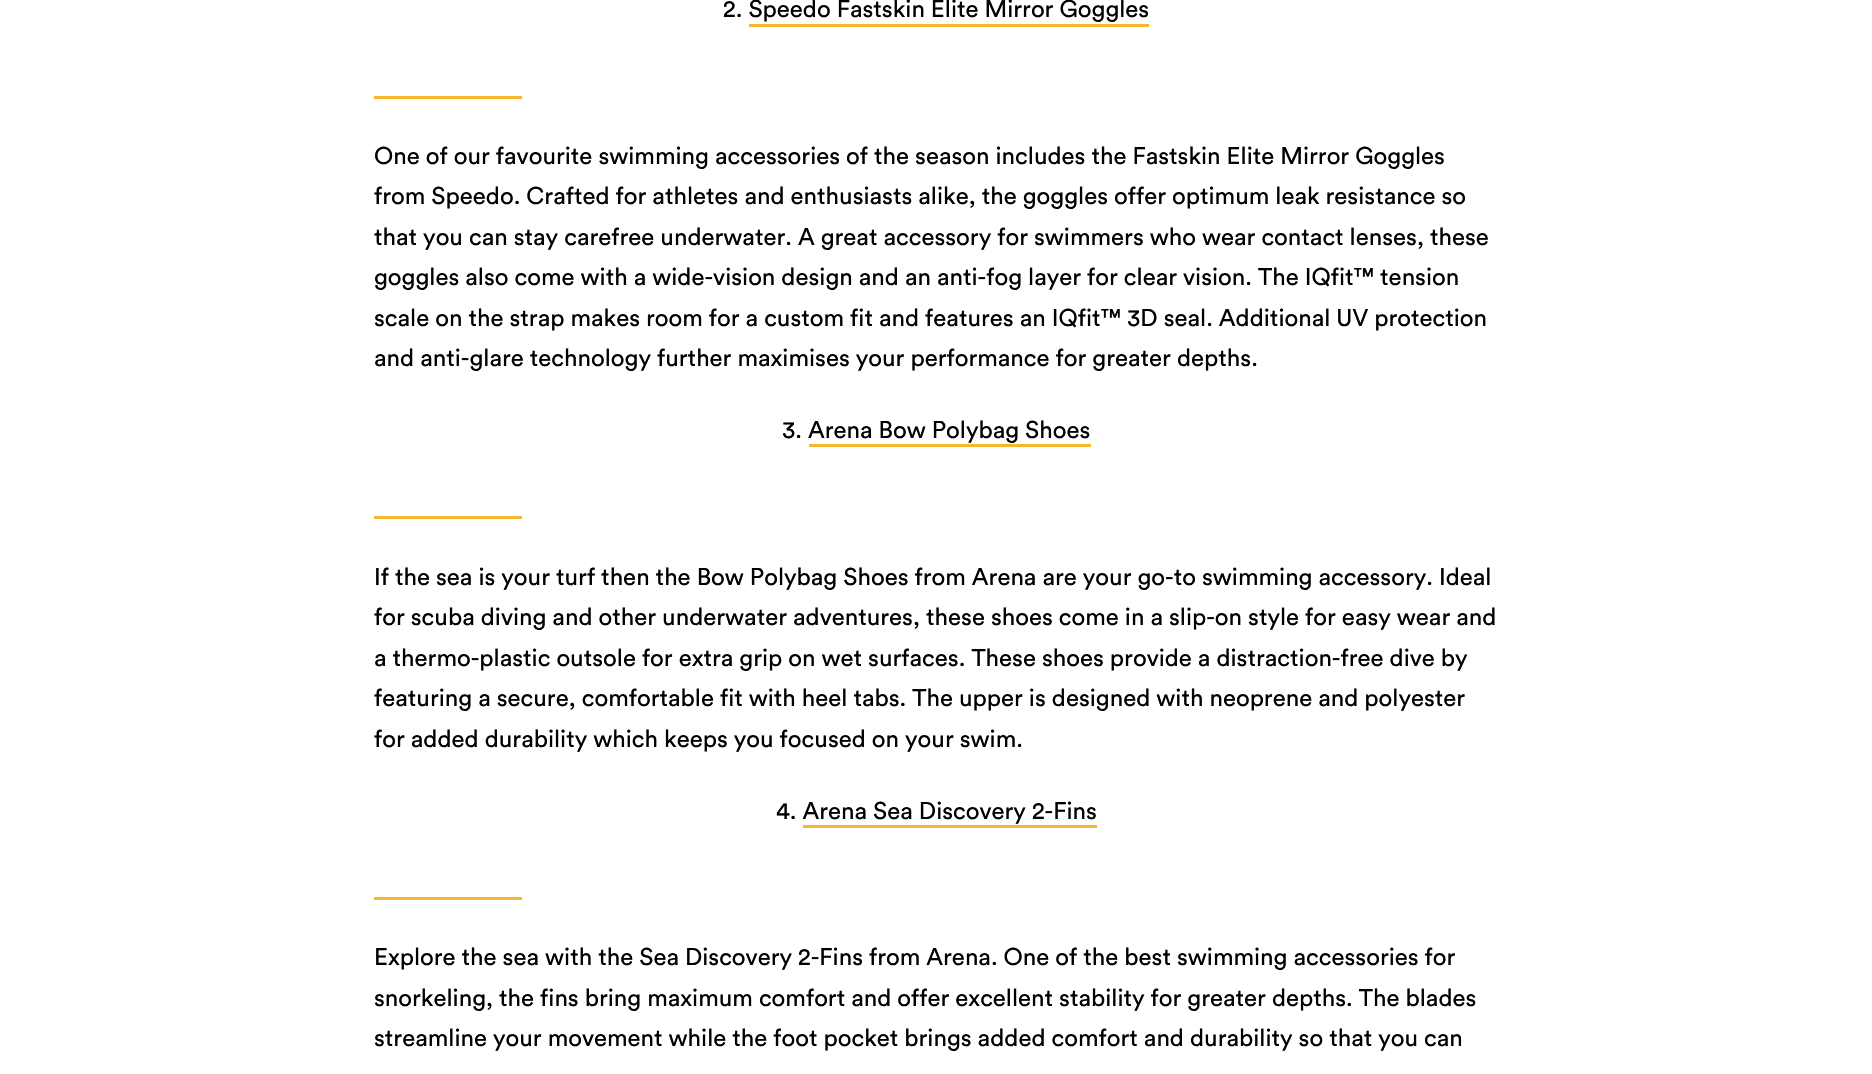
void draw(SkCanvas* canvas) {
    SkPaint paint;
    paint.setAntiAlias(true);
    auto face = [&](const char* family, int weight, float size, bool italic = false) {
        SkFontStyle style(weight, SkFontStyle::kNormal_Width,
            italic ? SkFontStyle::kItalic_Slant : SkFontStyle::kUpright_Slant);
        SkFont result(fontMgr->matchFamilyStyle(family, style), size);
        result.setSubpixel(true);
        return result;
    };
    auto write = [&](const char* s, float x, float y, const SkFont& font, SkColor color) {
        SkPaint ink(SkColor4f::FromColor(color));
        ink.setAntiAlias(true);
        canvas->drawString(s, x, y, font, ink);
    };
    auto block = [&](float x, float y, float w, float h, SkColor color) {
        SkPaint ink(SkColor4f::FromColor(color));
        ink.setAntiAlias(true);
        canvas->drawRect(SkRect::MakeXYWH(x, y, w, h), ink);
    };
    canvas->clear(SK_ColorWHITE);
    auto kFont1 = face("Circular", 400, 24);
    write("2. Speedo Fastskin Elite Mirror Goggles", 723, 17, kFont1, SK_ColorBLACK);
    block(749, 24, 400, 3, SkColorSetRGB(244, 183, 45));
    block(374, 96, 148, 3, SkColorSetRGB(244, 183, 45));
    write("One of our favourite swimming accessories of the season includes the Fastskin Elite Mirror Goggles", 374, 164, kFont1, SK_ColorBLACK);
    write("from Speedo. Crafted for athletes and enthusiasts alike, the goggles offer optimum leak resistance so", 374, 204, kFont1, SK_ColorBLACK);
    write("that you can stay carefree underwater. A great accessory for swimmers who wear contact lenses, these", 374, 245, kFont1, SK_ColorBLACK);
    write("goggles also come with a wide-vision design and an anti-fog layer for clear vision. The IQfit™ tension", 374, 285, kFont1, SK_ColorBLACK);
    write("scale on the strap makes room for a custom fit and features an IQfit™ 3D seal. Additional UV protection", 374, 326, kFont1, SK_ColorBLACK);
    write("and anti-glare technology further maximises your performance for greater depths.", 374, 366, kFont1, SK_ColorBLACK);
    write("3. Arena Bow Polybag Shoes", 782, 438, kFont1, SK_ColorBLACK);
    block(809, 444, 282, 3, SkColorSetRGB(244, 183, 45));
    block(374, 516, 148, 3, SkColorSetRGB(244, 183, 45));
    write("If the sea is your turf then the Bow Polybag Shoes from Arena are your go-to swimming accessory. Ideal", 374, 585, kFont1, SK_ColorBLACK);
    write("for scuba diving and other underwater adventures, these shoes come in a slip-on style for easy wear and", 374, 625, kFont1, SK_ColorBLACK);
    write("a thermo-plastic outsole for extra grip on wet surfaces. These shoes provide a distraction-free dive by", 374, 666, kFont1, SK_ColorBLACK);
    write("featuring a secure, comfortable fit with heel tabs. The upper is designed with neoprene and polyester", 374, 706, kFont1, SK_ColorBLACK);
    write("for added durability which keeps you focused on your swim.", 374, 747, kFont1, SK_ColorBLACK);
    write("4. Arena Sea Discovery 2-Fins", 776, 819, kFont1, SK_ColorBLACK);
    block(803, 825, 294, 3, SkColorSetRGB(244, 183, 45));
    block(374, 897, 148, 3, SkColorSetRGB(244, 183, 45));
    write("Explore the sea with the Sea Discovery 2-Fins from Arena. One of the best swimming accessories for", 374, 965, kFont1, SK_ColorBLACK);
    write("snorkeling, the fins bring maximum comfort and offer excellent stability for greater depths. The blades", 374, 1006, kFont1, SK_ColorBLACK);
    write("streamline your movement while the foot pocket brings added comfort and durability so that you can", 374, 1046, kFont1, SK_ColorBLACK);
}
